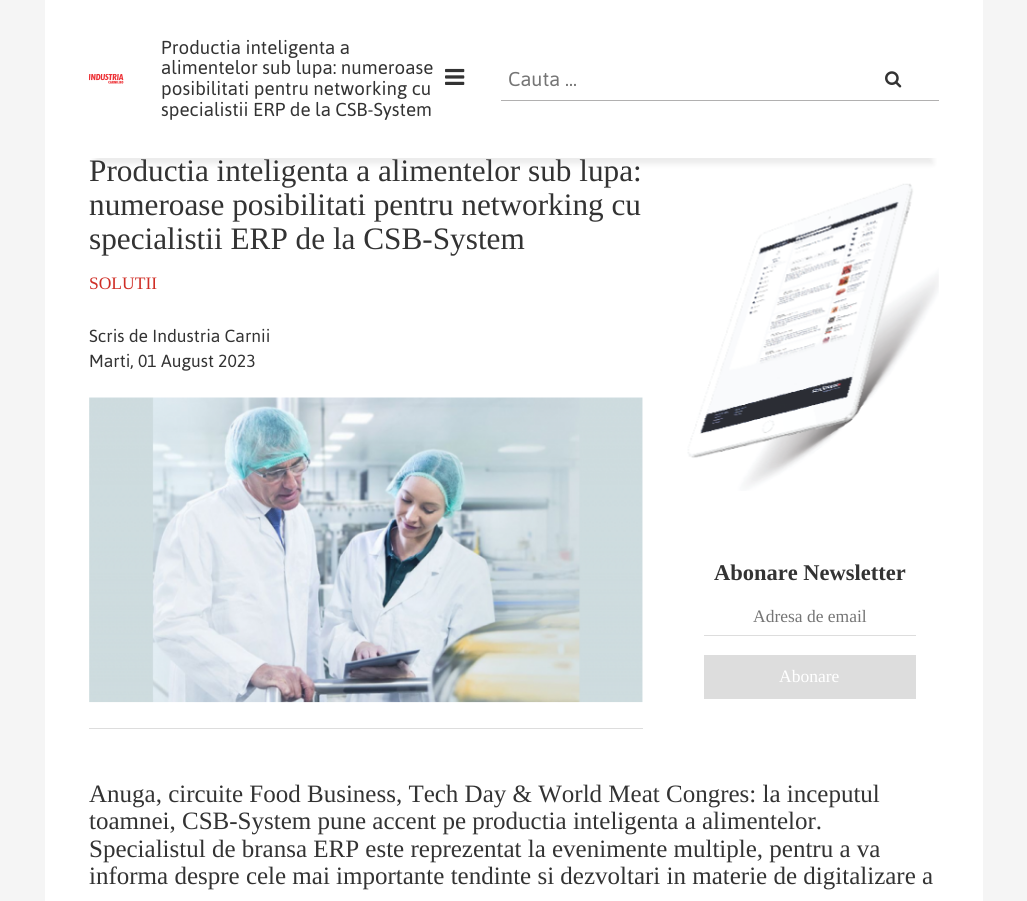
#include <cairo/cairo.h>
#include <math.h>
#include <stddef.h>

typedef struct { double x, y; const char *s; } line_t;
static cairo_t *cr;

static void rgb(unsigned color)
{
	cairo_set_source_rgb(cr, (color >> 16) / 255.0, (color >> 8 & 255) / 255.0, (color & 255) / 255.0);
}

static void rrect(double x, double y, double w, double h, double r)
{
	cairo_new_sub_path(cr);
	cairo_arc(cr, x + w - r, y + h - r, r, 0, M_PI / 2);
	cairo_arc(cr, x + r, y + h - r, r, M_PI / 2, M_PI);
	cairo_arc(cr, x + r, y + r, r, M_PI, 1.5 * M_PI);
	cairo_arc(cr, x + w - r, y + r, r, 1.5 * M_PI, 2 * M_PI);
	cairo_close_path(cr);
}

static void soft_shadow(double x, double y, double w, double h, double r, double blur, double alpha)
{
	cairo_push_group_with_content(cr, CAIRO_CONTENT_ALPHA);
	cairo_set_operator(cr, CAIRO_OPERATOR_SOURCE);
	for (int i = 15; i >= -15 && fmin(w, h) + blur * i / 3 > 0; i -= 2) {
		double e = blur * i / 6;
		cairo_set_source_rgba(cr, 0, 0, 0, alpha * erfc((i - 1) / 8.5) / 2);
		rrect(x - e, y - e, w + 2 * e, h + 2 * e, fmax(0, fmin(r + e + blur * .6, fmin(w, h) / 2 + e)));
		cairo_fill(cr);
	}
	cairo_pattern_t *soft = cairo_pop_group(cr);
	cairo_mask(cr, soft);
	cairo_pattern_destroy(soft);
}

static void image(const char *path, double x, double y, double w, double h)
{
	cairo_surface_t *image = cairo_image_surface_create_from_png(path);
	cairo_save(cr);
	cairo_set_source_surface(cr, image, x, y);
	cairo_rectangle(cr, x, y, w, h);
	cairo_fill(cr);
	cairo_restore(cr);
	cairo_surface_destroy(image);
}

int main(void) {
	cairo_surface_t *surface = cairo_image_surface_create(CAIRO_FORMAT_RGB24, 1027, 901);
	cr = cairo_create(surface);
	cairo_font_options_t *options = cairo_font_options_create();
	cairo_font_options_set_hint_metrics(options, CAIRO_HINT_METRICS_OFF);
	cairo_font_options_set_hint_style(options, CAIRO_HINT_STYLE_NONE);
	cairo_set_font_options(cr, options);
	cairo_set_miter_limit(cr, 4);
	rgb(0xf5f5f5);
	cairo_paint(cr);
	rgb(0xffffff);
	cairo_rectangle(cr, 45, 0, 938, 901);
	cairo_fill(cr);
	cairo_save(cr);
	cairo_set_fill_rule(cr, CAIRO_FILL_RULE_EVEN_ODD);
	cairo_new_path(cr);
	cairo_move_to(cr, 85, 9);
	cairo_line_to(cr, 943, 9);
	cairo_line_to(cr, 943, 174);
	cairo_line_to(cr, 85, 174);
	cairo_close_path(cr);
	cairo_move_to(cr, 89, 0);
	cairo_line_to(cr, 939, 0);
	cairo_line_to(cr, 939, 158);
	cairo_line_to(cr, 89, 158);
	cairo_close_path(cr);
	cairo_clip(cr);
	rgb(0x000000);
	soft_shadow(95, 19, 838, 145, 0, 3, 0.08);
	cairo_restore(cr);
	image("img/1.png", 89, 74, 35, 10);
	image("img/2.png", 445, 68, 20, 17);
	rgb(0xb1b0b0);
	cairo_rectangle(cr, 501, 100, 438, 1);
	cairo_fill(cr);
	image("img/3.png", 885, 71, 17, 17);
	image("img/4.png", 89, 397, 554, 306);
	rgb(0xdddddd);
	cairo_rectangle(cr, 89, 728, 554, 1);
	cairo_fill(cr);
	image("img/5.png", 687, 183, 252, 308);
	cairo_rectangle(cr, 704, 635, 212, 1);
	cairo_fill(cr);
	cairo_rectangle(cr, 704, 655, 212, 44);
	cairo_fill(cr);
	cairo_select_font_face(cr, "Asap", CAIRO_FONT_SLANT_NORMAL, CAIRO_FONT_WEIGHT_NORMAL);
	cairo_set_font_size(cr, 18.75);
	rgb(0x333333);
	{
		static const line_t items[] = {
			{161, 54, "Productia inteligenta a"},
			{161, 74, "alimentelor sub lupa: numeroase"},
			{161, 95, "posibilitati pentru networking cu"},
			{161, 116, "specialistii ERP de la CSB-System"},
		};
		for (size_t i = 0; i < sizeof items / sizeof *items; i++) {
			cairo_move_to(cr, items[i].x, items[i].y);
			cairo_show_text(cr, items[i].s);
		}
	}
	cairo_set_font_size(cr, 20);
	rgb(0x757575);
	cairo_move_to(cr, 508, 86);
	cairo_show_text(cr, "Cauta ...");
	cairo_select_font_face(cr, "Liberation Serif", CAIRO_FONT_SLANT_NORMAL, CAIRO_FONT_WEIGHT_NORMAL);
	cairo_set_font_size(cr, 31.25);
	rgb(0x333333);
	{
		static const line_t items[] = {
			{89, 181, "Productia inteligenta a alimentelor sub lupa:"},
			{89, 215, "numeroase posibilitati pentru networking cu"},
			{89, 249, "specialistii ERP de la CSB-System"},
		};
		for (size_t i = 0; i < sizeof items / sizeof *items; i++) {
			cairo_move_to(cr, items[i].x, items[i].y);
			cairo_show_text(cr, items[i].s);
		}
	}
	cairo_set_font_size(cr, 17.5);
	rgb(0xcf2e26);
	cairo_move_to(cr, 89, 289);
	cairo_show_text(cr, "SOLUTII");
	cairo_select_font_face(cr, "Asap", CAIRO_FONT_SLANT_NORMAL, CAIRO_FONT_WEIGHT_NORMAL);
	rgb(0x333333);
	cairo_move_to(cr, 89, 342);
	cairo_show_text(cr, "Scris de Industria Carnii");
	cairo_move_to(cr, 89, 367);
	cairo_show_text(cr, "Marti, 01 August 2023");
	cairo_select_font_face(cr, "Liberation Serif", CAIRO_FONT_SLANT_NORMAL, CAIRO_FONT_WEIGHT_BOLD);
	cairo_set_font_size(cr, 22.5);
	cairo_move_to(cr, 714, 580);
	cairo_show_text(cr, "Abonare Newsletter");
	cairo_select_font_face(cr, "Liberation Serif", CAIRO_FONT_SLANT_NORMAL, CAIRO_FONT_WEIGHT_NORMAL);
	cairo_set_font_size(cr, 17.5);
	rgb(0x757575);
	cairo_move_to(cr, 753, 622);
	cairo_show_text(cr, "Adresa de email");
	rgb(0xffffff);
	cairo_move_to(cr, 779, 682);
	cairo_show_text(cr, "Abonare");
	cairo_set_font_size(cr, 25);
	rgb(0x333333);
	{
		static const line_t items[] = {
			{89, 802, "Anuga, circuite Food Business, Tech Day & World Meat Congres: la inceputul"},
			{89, 829, "toamnei, CSB-System pune accent pe productia inteligenta a alimentelor."},
			{89, 857, "Specialistul de bransa ERP este reprezentat la evenimente multiple, pentru a va"},
			{89, 884, "informa despre cele mai importante tendinte si dezvoltari in materie de digitalizare a"},
		};
		for (size_t i = 0; i < sizeof items / sizeof *items; i++) {
			cairo_move_to(cr, items[i].x, items[i].y);
			cairo_show_text(cr, items[i].s);
		}
	}
	cairo_surface_write_to_png(surface, "page.png");
	cairo_font_options_destroy(options);
	cairo_destroy(cr);
	cairo_surface_destroy(surface);
	return 0;
}
